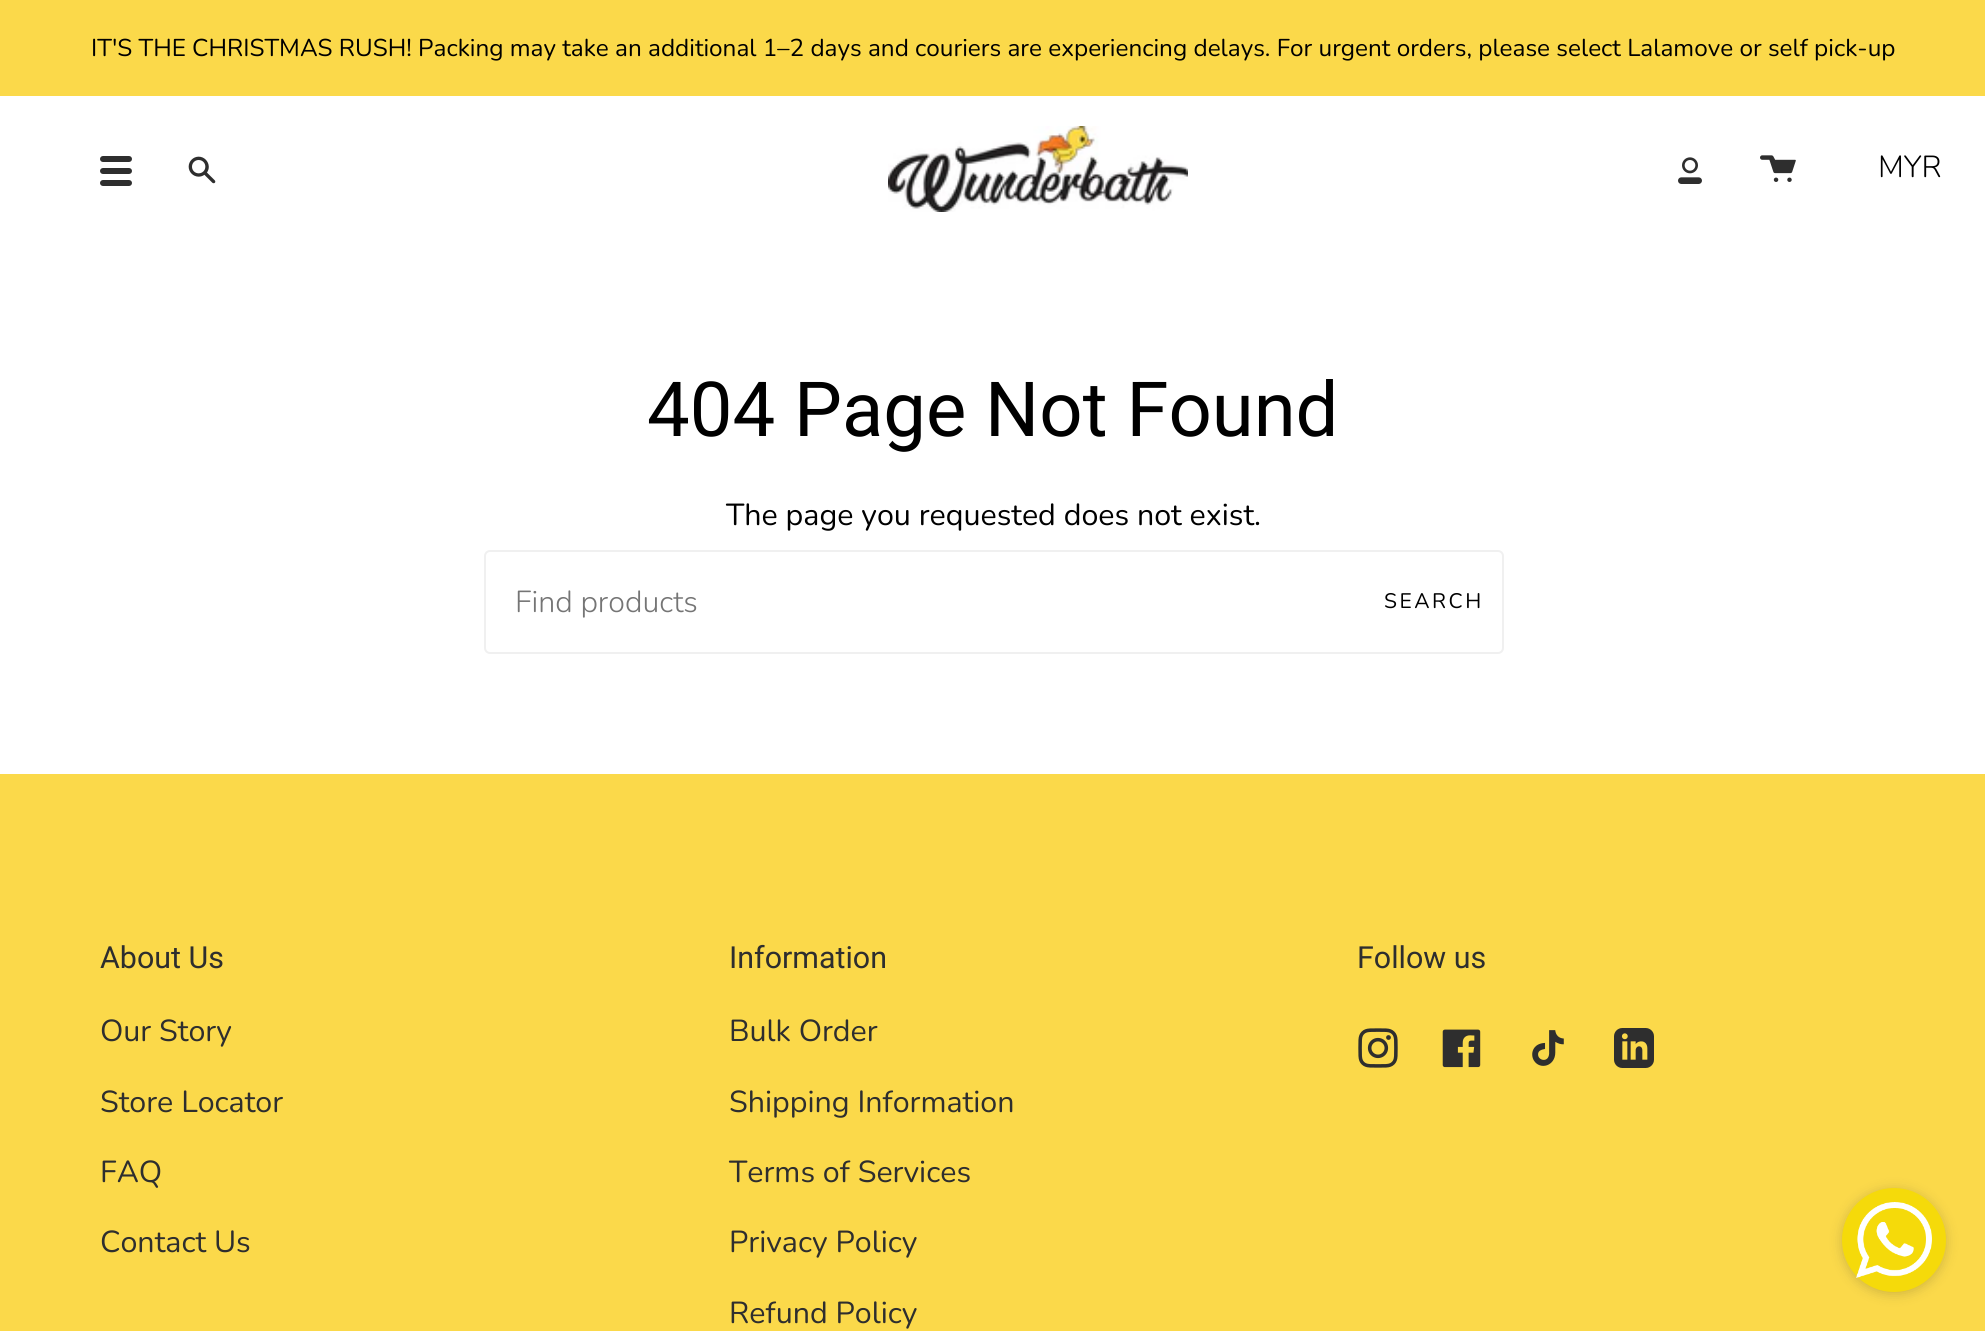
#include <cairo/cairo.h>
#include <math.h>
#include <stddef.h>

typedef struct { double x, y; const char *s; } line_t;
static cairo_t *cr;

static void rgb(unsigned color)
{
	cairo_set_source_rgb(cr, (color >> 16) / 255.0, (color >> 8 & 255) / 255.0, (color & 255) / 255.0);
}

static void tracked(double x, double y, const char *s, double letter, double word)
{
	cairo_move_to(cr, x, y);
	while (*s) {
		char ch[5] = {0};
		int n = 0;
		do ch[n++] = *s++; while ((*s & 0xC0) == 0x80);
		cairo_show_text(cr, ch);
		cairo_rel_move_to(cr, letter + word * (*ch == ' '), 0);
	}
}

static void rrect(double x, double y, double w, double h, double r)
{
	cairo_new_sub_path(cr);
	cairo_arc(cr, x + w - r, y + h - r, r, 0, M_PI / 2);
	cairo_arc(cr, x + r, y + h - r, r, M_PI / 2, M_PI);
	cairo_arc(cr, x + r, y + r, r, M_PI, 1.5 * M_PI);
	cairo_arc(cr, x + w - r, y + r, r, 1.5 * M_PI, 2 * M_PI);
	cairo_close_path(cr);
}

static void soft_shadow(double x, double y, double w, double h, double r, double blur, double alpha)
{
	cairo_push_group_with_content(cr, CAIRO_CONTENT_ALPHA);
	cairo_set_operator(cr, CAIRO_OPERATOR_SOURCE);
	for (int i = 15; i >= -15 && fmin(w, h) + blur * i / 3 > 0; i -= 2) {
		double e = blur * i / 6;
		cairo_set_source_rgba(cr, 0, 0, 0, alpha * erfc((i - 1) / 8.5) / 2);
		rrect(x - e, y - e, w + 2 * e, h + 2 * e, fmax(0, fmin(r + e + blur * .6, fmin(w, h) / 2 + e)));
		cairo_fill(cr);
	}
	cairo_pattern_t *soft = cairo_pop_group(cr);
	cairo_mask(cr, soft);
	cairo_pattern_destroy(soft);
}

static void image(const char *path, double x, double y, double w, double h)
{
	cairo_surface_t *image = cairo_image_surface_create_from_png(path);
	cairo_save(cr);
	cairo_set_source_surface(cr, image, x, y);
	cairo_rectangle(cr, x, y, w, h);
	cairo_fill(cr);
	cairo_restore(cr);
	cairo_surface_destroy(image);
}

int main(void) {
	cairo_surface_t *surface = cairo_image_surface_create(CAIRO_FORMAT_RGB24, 1985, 1331);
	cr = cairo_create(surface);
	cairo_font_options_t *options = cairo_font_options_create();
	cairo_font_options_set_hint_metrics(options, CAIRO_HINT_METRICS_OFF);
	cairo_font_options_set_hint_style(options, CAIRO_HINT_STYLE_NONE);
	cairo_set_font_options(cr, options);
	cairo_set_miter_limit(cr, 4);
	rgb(0xffffff);
	cairo_paint(cr);
	rgb(0xfbd94a);
	cairo_rectangle(cr, 0, 0, 1985, 96);
	cairo_fill(cr);
	rgb(0x2e2e2e);
	rrect(100, 156, 32, 6, 3);
	cairo_fill(cr);
	rrect(100, 168, 32, 6, 3);
	cairo_fill(cr);
	rrect(100, 180, 32, 6, 3);
	cairo_fill(cr);
	image("img/1.png", 188, 156, 28, 28);
	image("img/2.png", 888, 126, 300, 86);
	image("img/3.png", 1678, 157, 24, 27);
	image("img/4.png", 1760, 155, 36, 27);
	rrect(485, 551, 1018, 102, 5);
	rgb(0xf0f0f0);
	cairo_stroke(cr);
	rgb(0xfbd94a);
	cairo_rectangle(cr, 0, 774, 1985, 557);
	cairo_fill(cr);
	image("img/5.png", 1358, 1028, 40, 40);
	image("img/6.png", 1442, 1029, 39, 39);
	image("img/7.png", 1532, 1030, 32, 36);
	image("img/8.png", 1614, 1028, 40, 40);
	rgb(0x1b1b1b);
	soft_shadow(1842, 1190, 104, 104, 52, 6, 0.2);
	rgb(0xf5da0a);
	cairo_arc(cr, 1894, 1240, 51, 0, 2 * M_PI);
	cairo_fill_preserve(cr);
	cairo_stroke(cr);
	image("img/9.png", 1856, 1202, 76, 76);
	cairo_select_font_face(cr, "Nunito", CAIRO_FONT_SLANT_NORMAL, CAIRO_FONT_WEIGHT_NORMAL);
	cairo_set_font_size(cr, 24.32);
	rgb(0x000000);
	cairo_move_to(cr, 91, 56);
	cairo_show_text(cr, "IT'S THE CHRISTMAS RUSH! Packing may take an additional 1–2 days and couriers are experiencing delays. For urgent orders, please select Lalamove or self pick-up");
	cairo_select_font_face(cr, "Nunito Light", CAIRO_FONT_SLANT_NORMAL, CAIRO_FONT_WEIGHT_NORMAL);
	cairo_set_font_size(cr, 30.4);
	cairo_move_to(cr, 1878, 177);
	cairo_show_text(cr, "MYR");
	cairo_select_font_face(cr, "Roboto", CAIRO_FONT_SLANT_NORMAL, CAIRO_FONT_WEIGHT_NORMAL);
	cairo_set_font_size(cr, 76);
	cairo_move_to(cr, 647, 436);
	cairo_show_text(cr, "404 Page Not Found");
	cairo_select_font_face(cr, "Nunito", CAIRO_FONT_SLANT_NORMAL, CAIRO_FONT_WEIGHT_NORMAL);
	cairo_set_font_size(cr, 30.4);
	cairo_move_to(cr, 726, 525);
	cairo_show_text(cr, "The page you requested does not exist.");
	cairo_select_font_face(cr, "Nunito Light", CAIRO_FONT_SLANT_NORMAL, CAIRO_FONT_WEIGHT_NORMAL);
	rgb(0x757575);
	cairo_move_to(cr, 515, 612);
	cairo_show_text(cr, "Find products");
	cairo_select_font_face(cr, "Nunito", CAIRO_FONT_SLANT_NORMAL, CAIRO_FONT_WEIGHT_NORMAL);
	cairo_set_font_size(cr, 21);
	rgb(0x000000);
	tracked(1384, 608, "SEARCH", 2.5, 0);
	cairo_select_font_face(cr, "Roboto", CAIRO_FONT_SLANT_NORMAL, CAIRO_FONT_WEIGHT_NORMAL);
	cairo_set_font_size(cr, 30.4);
	rgb(0x2e2e2e);
	cairo_move_to(cr, 100, 968);
	cairo_show_text(cr, "About Us");
	cairo_select_font_face(cr, "Nunito", CAIRO_FONT_SLANT_NORMAL, CAIRO_FONT_WEIGHT_NORMAL);
	{
		static const line_t items[] = {
			{100, 1041, "Our Story"},
			{100, 1112, "Store Locator"},
			{100, 1182, "FAQ"},
			{100, 1252, "Contact Us"},
		};
		for (size_t i = 0; i < sizeof items / sizeof *items; i++) {
			cairo_move_to(cr, items[i].x, items[i].y);
			cairo_show_text(cr, items[i].s);
		}
	}
	cairo_select_font_face(cr, "Roboto", CAIRO_FONT_SLANT_NORMAL, CAIRO_FONT_WEIGHT_NORMAL);
	cairo_move_to(cr, 729, 968);
	cairo_show_text(cr, "Information");
	cairo_select_font_face(cr, "Nunito", CAIRO_FONT_SLANT_NORMAL, CAIRO_FONT_WEIGHT_NORMAL);
	{
		static const line_t items[] = {
			{729, 1041, "Bulk Order"},
			{729, 1112, "Shipping Information"},
			{729, 1182, "Terms of Services"},
			{729, 1252, "Privacy Policy"},
			{729, 1323, "Refund Policy"},
		};
		for (size_t i = 0; i < sizeof items / sizeof *items; i++) {
			cairo_move_to(cr, items[i].x, items[i].y);
			cairo_show_text(cr, items[i].s);
		}
	}
	cairo_select_font_face(cr, "Roboto", CAIRO_FONT_SLANT_NORMAL, CAIRO_FONT_WEIGHT_NORMAL);
	cairo_move_to(cr, 1357, 968);
	cairo_show_text(cr, "Follow us");
	cairo_surface_write_to_png(surface, "page.png");
	cairo_font_options_destroy(options);
	cairo_destroy(cr);
	cairo_surface_destroy(surface);
	return 0;
}
